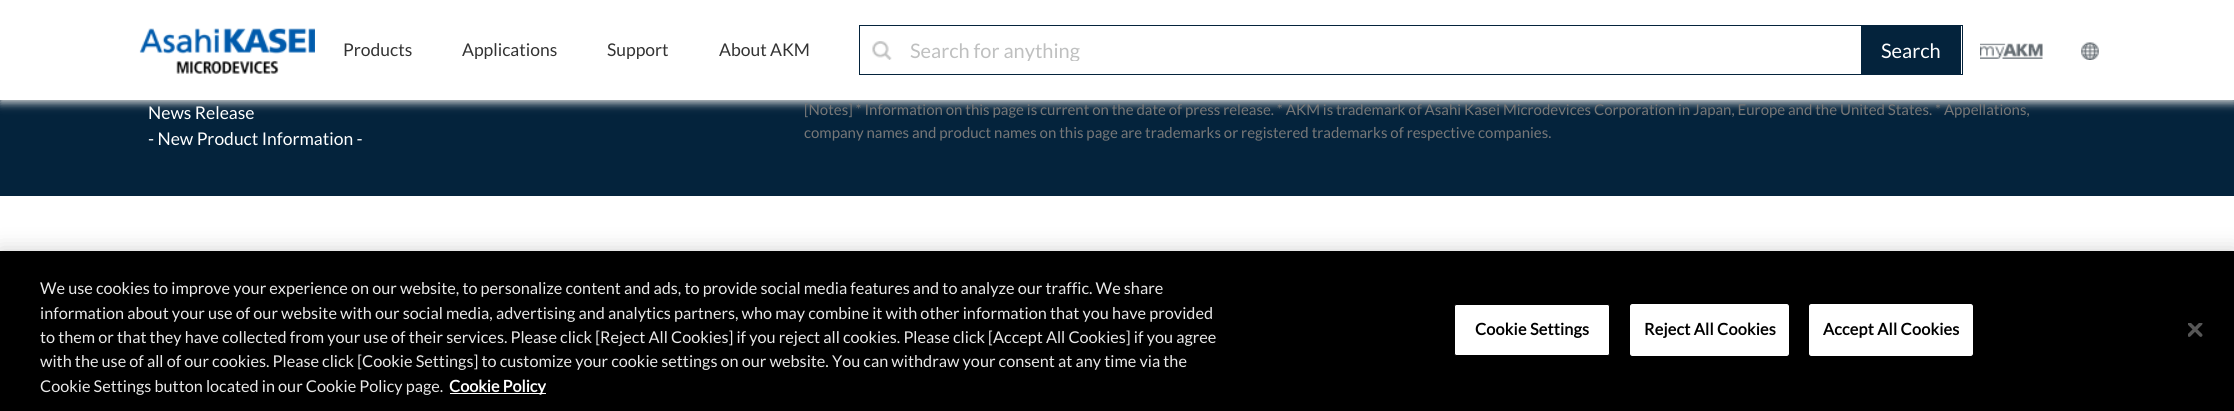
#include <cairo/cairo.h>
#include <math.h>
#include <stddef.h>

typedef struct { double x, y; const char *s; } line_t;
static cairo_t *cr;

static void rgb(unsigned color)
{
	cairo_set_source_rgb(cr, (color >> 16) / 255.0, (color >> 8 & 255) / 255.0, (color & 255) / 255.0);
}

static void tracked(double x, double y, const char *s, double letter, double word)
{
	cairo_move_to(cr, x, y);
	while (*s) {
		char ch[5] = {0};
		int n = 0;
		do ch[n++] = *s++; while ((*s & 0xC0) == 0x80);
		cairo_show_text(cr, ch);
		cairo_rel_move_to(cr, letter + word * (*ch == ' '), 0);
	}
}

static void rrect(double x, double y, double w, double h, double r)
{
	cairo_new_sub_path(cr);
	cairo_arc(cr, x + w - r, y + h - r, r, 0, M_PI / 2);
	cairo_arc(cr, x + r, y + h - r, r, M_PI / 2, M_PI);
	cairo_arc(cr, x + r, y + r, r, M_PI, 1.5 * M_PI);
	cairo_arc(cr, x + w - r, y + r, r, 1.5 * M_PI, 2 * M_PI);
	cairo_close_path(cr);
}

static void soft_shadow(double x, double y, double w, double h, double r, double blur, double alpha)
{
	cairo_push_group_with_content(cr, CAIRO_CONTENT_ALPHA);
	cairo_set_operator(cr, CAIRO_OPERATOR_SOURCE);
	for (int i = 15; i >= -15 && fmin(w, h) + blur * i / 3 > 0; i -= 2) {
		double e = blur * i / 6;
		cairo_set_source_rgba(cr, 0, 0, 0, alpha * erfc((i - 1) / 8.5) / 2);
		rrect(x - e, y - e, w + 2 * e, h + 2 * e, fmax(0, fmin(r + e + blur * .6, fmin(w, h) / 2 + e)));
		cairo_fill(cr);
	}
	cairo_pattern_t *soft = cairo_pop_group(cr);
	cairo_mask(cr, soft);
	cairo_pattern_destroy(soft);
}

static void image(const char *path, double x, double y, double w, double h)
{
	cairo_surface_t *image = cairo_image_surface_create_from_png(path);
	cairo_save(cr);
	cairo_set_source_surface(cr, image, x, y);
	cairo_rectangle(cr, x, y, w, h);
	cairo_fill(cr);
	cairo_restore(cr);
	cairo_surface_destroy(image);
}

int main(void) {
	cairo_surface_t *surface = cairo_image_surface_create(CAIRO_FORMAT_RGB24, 2234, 411);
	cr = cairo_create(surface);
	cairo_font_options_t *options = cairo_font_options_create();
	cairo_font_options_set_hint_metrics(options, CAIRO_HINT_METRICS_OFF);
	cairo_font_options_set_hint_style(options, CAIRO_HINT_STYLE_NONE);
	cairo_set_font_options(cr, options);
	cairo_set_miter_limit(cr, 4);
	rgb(0xffffff);
	cairo_paint(cr);
	rgb(0x04233c);
	cairo_rectangle(cr, 0, 100, 2234, 96);
	cairo_fill(cr);
	rgb(0xd7d8d8);
	soft_shadow(0, 3, 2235, 100, 0, 4.5, 1);
	rgb(0xffffff);
	cairo_rectangle(cr, 0, 0, 2234, 100);
	cairo_fill(cr);
	image("img/1.png", 139, 28, 176, 46);
	image("img/2.png", 872, 41, 20, 19);
	rgb(0x04233c);
	cairo_rectangle(cr, 1861, 26, 100, 48);
	cairo_fill(cr);
	cairo_rectangle(cr, 859.5, 25.5, 1103, 49);
	cairo_set_line_width(cr, 1);
	cairo_stroke(cr);
	image("img/3.png", 1980, 43, 63, 16);
	image("img/4.png", 2081, 42, 18, 18);
	rgb(0x000000);
	soft_shadow(0, 251, 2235, 160, 0, 11, 0.2);
	rgb(0x000000);
	cairo_rectangle(cr, 0, 251, 2234, 160);
	cairo_fill(cr);
	rgb(0xffffff);
	cairo_rectangle(cr, 450, 393, 96, 1);
	cairo_fill(cr);
	rrect(1454.5, 304.5, 155, 51, 2);
	cairo_fill_preserve(cr);
	rgb(0x000000);
	cairo_stroke(cr);
	rgb(0xffffff);
	rrect(1630.5, 304.5, 158, 51, 2);
	cairo_fill_preserve(cr);
	cairo_stroke(cr);
	rrect(1809.5, 304.5, 163, 51, 2);
	cairo_fill_preserve(cr);
	cairo_stroke(cr);
	image("img/5.png", 2188, 323, 15, 14);
	cairo_select_font_face(cr, "Lato", CAIRO_FONT_SLANT_NORMAL, CAIRO_FONT_WEIGHT_NORMAL);
	cairo_set_font_size(cr, 17.5);
	rgb(0x333333);
	{
		static const line_t items[] = {
			{343, 56, "Products"},
			{462, 56, "Applications"},
			{607, 56, "Support"},
			{719, 56, "About AKM"},
		};
		for (size_t i = 0; i < sizeof items / sizeof *items; i++) {
			cairo_move_to(cr, items[i].x, items[i].y);
			cairo_show_text(cr, items[i].s);
		}
	}
	cairo_save(cr);
	cairo_rectangle(cr, 910, 38, 951, 23);
	cairo_clip(cr);
	cairo_set_font_size(cr, 20);
	rgb(0xbfc0c0);
	cairo_move_to(cr, 910, 58);
	cairo_show_text(cr, "Search for anything");
	cairo_restore(cr);
	cairo_set_font_size(cr, 20);
	rgb(0xffffff);
	cairo_move_to(cr, 1881, 58);
	cairo_show_text(cr, "Search");
	cairo_set_font_size(cr, 17.5);
	cairo_move_to(cr, 148, 119);
	cairo_show_text(cr, "News Release");
	cairo_move_to(cr, 148, 145);
	cairo_show_text(cr, "- New Product Information -");
	cairo_set_font_size(cr, 15);
	rgb(0x777777);
	cairo_move_to(cr, 804, 115);
	cairo_show_text(cr, "[Notes] * Information on this page is current on the date of press release. * AKM is trademark of Asahi Kasei Microdevices Corporation in Japan, Europe and the United States. * Appellations,");
	cairo_move_to(cr, 804, 138);
	cairo_show_text(cr, "company names and product names on this page are trademarks or registered trademarks of respective companies.");
	cairo_set_font_size(cr, 16.25);
	rgb(0xe9e9e9);
	{
		static const line_t items[] = {
			{40, 294, "We use cookies to improve your experience on our website, to personalize content and ads, to provide social media features and to analyze our traffic. We share"},
			{40, 319, "information about your use of our website with our social media, advertising and analytics partners, who may combine it with other information that you have provided"},
			{40, 343, "to them or that they have collected from your use of their services. Please click [Reject All Cookies] if you reject all cookies. Please click [Accept All Cookies] if you agree"},
			{40, 367, "with the use of all of our cookies. Please click [Cookie Settings] to customize your cookie settings on our website. You can withdraw your consent at any time via the"},
			{40, 392, "Cookie Settings button located in our Cookie Policy page."},
		};
		for (size_t i = 0; i < sizeof items / sizeof *items; i++) {
			cairo_move_to(cr, items[i].x, items[i].y);
			cairo_show_text(cr, items[i].s);
		}
	}
	cairo_select_font_face(cr, "Lato", CAIRO_FONT_SLANT_NORMAL, CAIRO_FONT_WEIGHT_BOLD);
	rgb(0xffffff);
	cairo_move_to(cr, 449, 392);
	cairo_show_text(cr, "Cookie Policy");
	rgb(0x000000);
	{
		static const line_t items[] = {
			{1475, 335, "Cookie Settings"},
			{1644, 335, "Reject All Cookies"},
			{1823, 335, "Accept All Cookies"},
		};
		for (size_t i = 0; i < sizeof items / sizeof *items; i++) {
			tracked(items[i].x, items[i].y, items[i].s, 0.2, 0);
		}
	}
	cairo_surface_write_to_png(surface, "page.png");
	cairo_font_options_destroy(options);
	cairo_destroy(cr);
	cairo_surface_destroy(surface);
	return 0;
}
